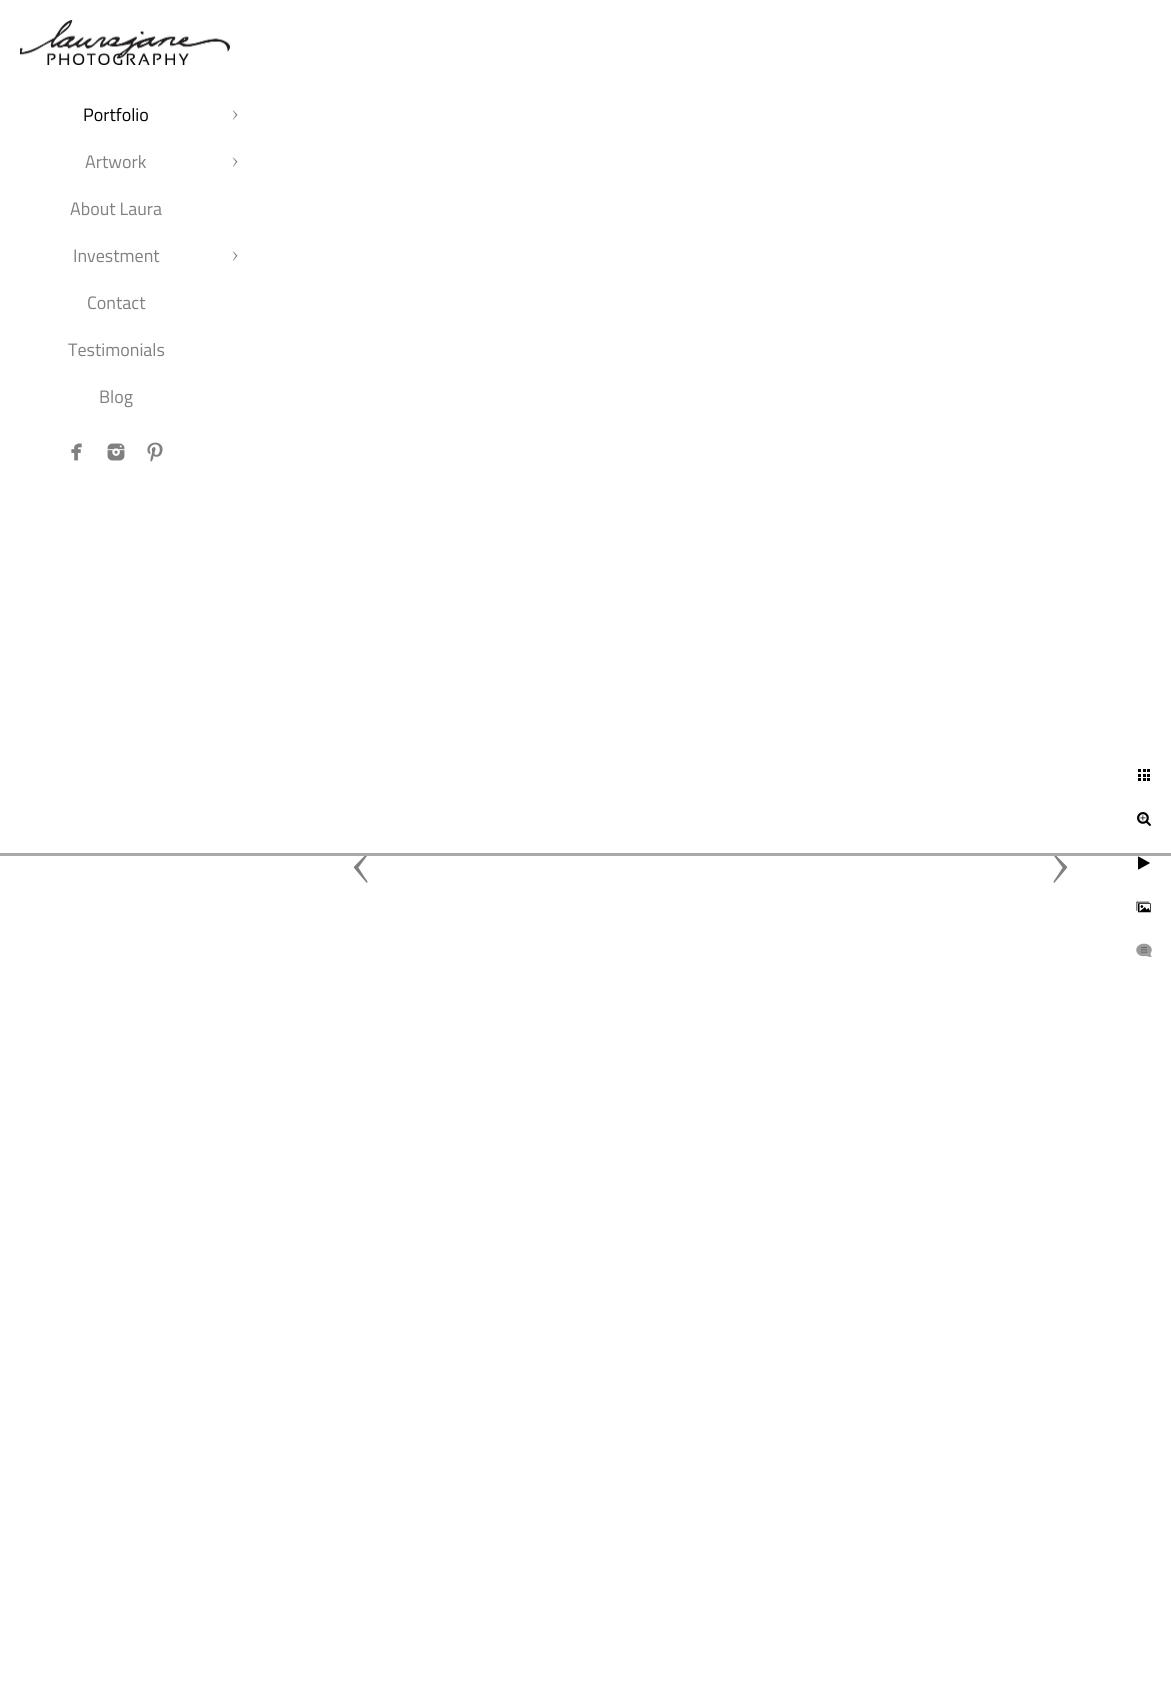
#include <cairo/cairo.h>
#include <math.h>
#include <stddef.h>

typedef struct { double x, y; const char *s; } line_t;
static cairo_t *cr;

static void rgb(unsigned color)
{
	cairo_set_source_rgb(cr, (color >> 16) / 255.0, (color >> 8 & 255) / 255.0, (color & 255) / 255.0);
}

static void image(const char *path, double x, double y, double w, double h)
{
	cairo_surface_t *image = cairo_image_surface_create_from_png(path);
	cairo_save(cr);
	cairo_set_source_surface(cr, image, x, y);
	cairo_rectangle(cr, x, y, w, h);
	cairo_fill(cr);
	cairo_restore(cr);
	cairo_surface_destroy(image);
}

int main(void) {
	cairo_surface_t *surface = cairo_image_surface_create(CAIRO_FORMAT_RGB24, 1171, 1705);
	cr = cairo_create(surface);
	cairo_font_options_t *options = cairo_font_options_create();
	cairo_font_options_set_hint_metrics(options, CAIRO_HINT_METRICS_OFF);
	cairo_font_options_set_hint_style(options, CAIRO_HINT_STYLE_NONE);
	cairo_set_font_options(cr, options);
	cairo_set_miter_limit(cr, 4);
	rgb(0xffffff);
	cairo_paint(cr);
	image("img/1.png", 20, 20, 210, 45);
	image("img/2.png", 232, 110, 6, 10);
	image("img/2.png", 232, 157, 6, 10);
	image("img/2.png", 232, 251, 6, 10);
	image("img/3.png", 71, 443, 11, 18);
	image("img/4.png", 107, 443, 18, 18);
	image("img/5.png", 147, 442, 16, 20);
	image("img/6.png", 1138, 769, 12, 12);
	image("img/7.png", 1137, 812, 14, 14);
	image("img/8.png", 1138, 856, 12, 14);
	image("img/9.png", 1136, 901, 15, 12);
	image("img/10.png", 1136, 943, 16, 15);
	rgb(0xa9a9a9);
	cairo_rectangle(cr, 0, 853, 1171, 3);
	cairo_fill(cr);
	image("img/11.png", 353, 856, 15, 27);
	image("img/12.png", 1053, 856, 15, 27);
	cairo_select_font_face(cr, "Titillium Web", CAIRO_FONT_SLANT_NORMAL, CAIRO_FONT_WEIGHT_NORMAL);
	cairo_set_font_size(cr, 18);
	rgb(0x000000);
	cairo_move_to(cr, 83, 121);
	cairo_show_text(cr, "Portfolio");
	rgb(0x808080);
	{
		static const line_t items[] = {
			{85, 168, "Artwork"},
			{70, 215, "About Laura"},
			{73, 262, "Investment"},
			{87, 309, "Contact"},
			{68, 356, "Testimonials"},
			{99, 403, "Blog"},
		};
		for (size_t i = 0; i < sizeof items / sizeof *items; i++) {
			cairo_move_to(cr, items[i].x, items[i].y);
			cairo_show_text(cr, items[i].s);
		}
	}
	cairo_surface_write_to_png(surface, "page.png");
	cairo_font_options_destroy(options);
	cairo_destroy(cr);
	cairo_surface_destroy(surface);
	return 0;
}
